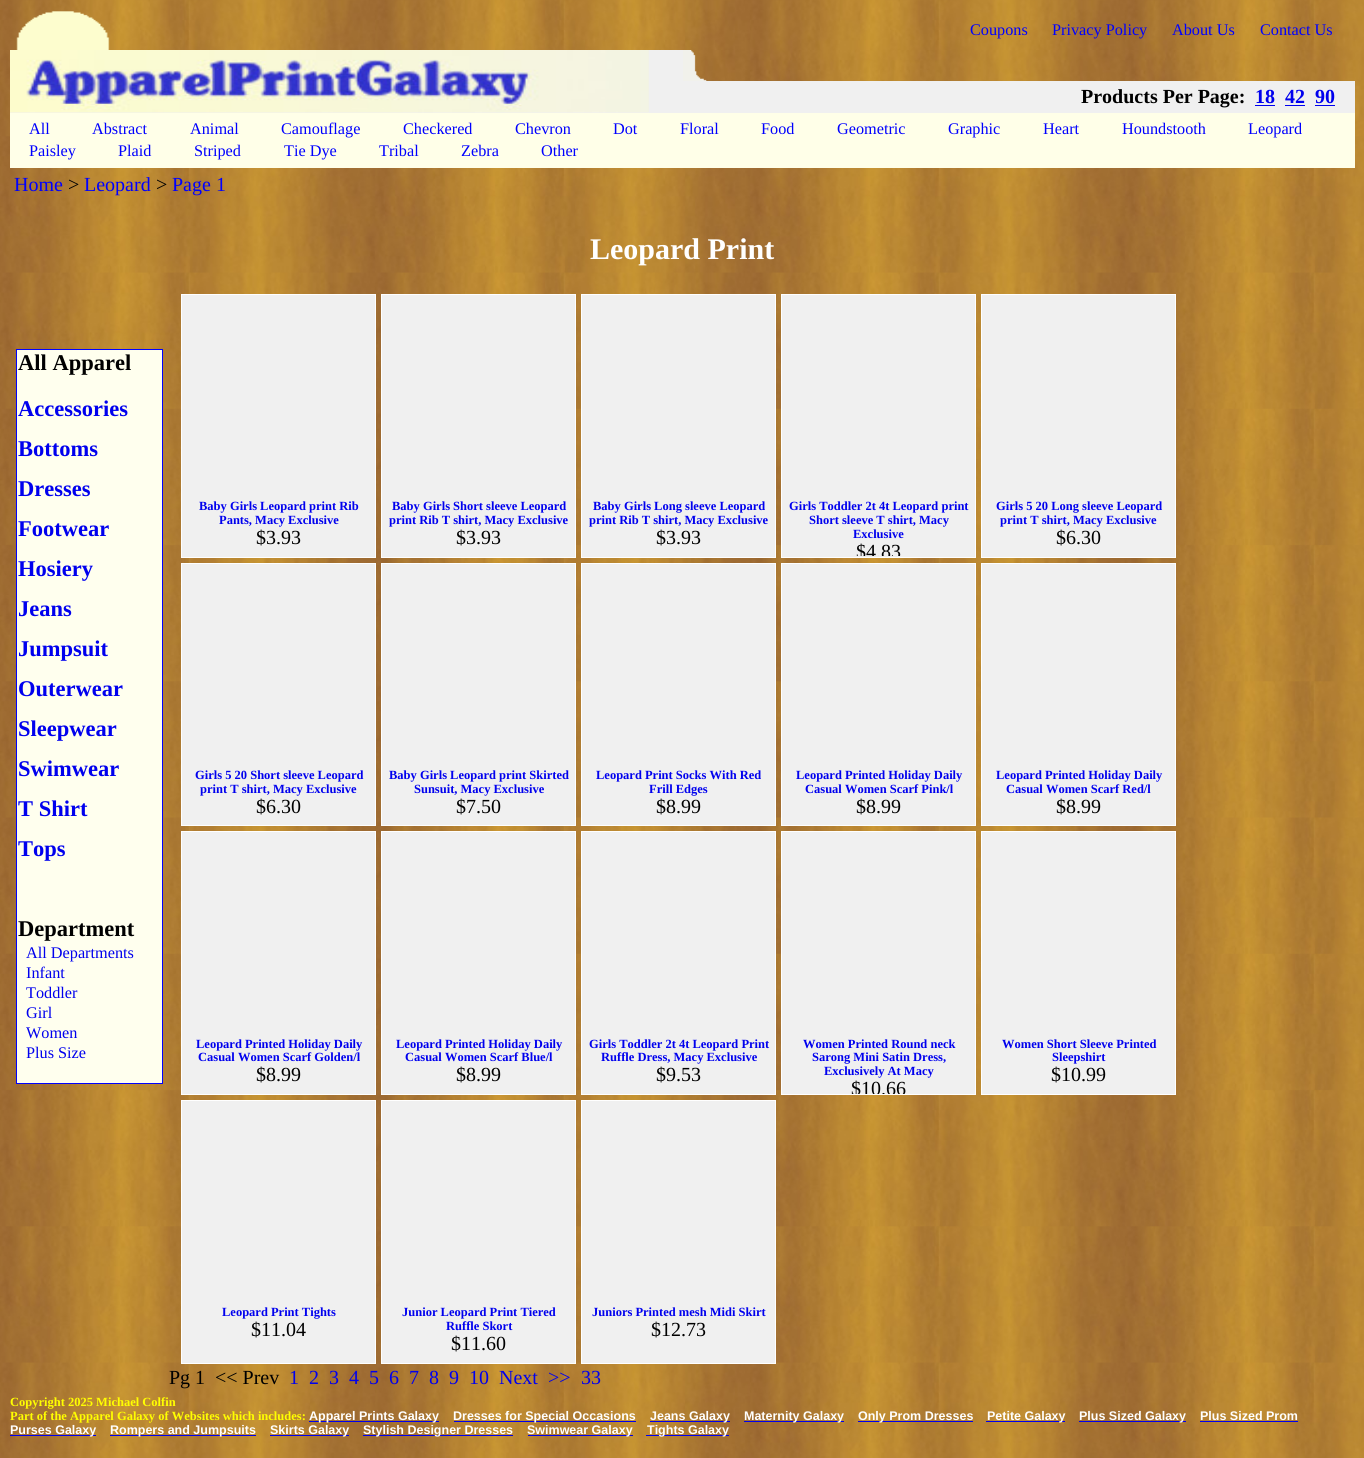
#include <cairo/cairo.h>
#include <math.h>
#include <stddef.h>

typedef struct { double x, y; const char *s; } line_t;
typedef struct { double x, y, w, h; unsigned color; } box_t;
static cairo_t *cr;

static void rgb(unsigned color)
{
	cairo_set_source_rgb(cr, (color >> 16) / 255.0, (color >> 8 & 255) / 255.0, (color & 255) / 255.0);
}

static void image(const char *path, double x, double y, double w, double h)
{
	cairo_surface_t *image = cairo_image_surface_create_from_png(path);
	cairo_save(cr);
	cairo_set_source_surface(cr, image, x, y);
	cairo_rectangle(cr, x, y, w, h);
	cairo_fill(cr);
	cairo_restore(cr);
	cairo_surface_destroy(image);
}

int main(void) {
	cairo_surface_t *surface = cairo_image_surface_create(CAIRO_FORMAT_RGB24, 1364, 1458);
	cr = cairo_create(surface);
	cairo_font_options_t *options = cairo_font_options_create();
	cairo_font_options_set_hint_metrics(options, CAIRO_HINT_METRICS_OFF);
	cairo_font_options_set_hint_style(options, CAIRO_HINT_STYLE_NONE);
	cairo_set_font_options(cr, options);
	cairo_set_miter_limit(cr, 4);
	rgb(0xffffff);
	cairo_paint(cr);
	image("img/1.png", 0, 0, 1364, 1458);
	image("img/2.png", 16, 11, 94, 39);
	rgb(0xf0f0f0);
	cairo_rectangle(cr, 10, 50, 673, 63);
	cairo_fill(cr);
	image("img/3.png", 10, 50, 639, 63);
	image("img/4.png", 683, 50, 24, 31);
	{
		static const box_t items[] = {
			{683, 81, 672, 32, 0xf0f0f0},
			{1255, 105, 20, 1, 0x0000ee},
			{1285, 105, 20, 1, 0x0000ee},
			{1315, 105, 20, 1, 0x0000ee},
			{10, 113, 1345, 55, 0xffffe8},
		};
		for (size_t i = 0; i < sizeof items / sizeof *items; i++) {
			rgb(items[i].color);
			cairo_rectangle(cr, items[i].x, items[i].y, items[i].w, items[i].h);
			cairo_fill(cr);
		}
	}
	rgb(0xffffee);
	cairo_rectangle(cr, 16.5, 349.5, 146, 734);
	cairo_fill_preserve(cr);
	rgb(0x0000ff);
	cairo_set_line_width(cr, 1);
	cairo_stroke(cr);
	rgb(0xf0f0f0);
	cairo_rectangle(cr, 181.5, 294.5, 194, 263);
	cairo_fill_preserve(cr);
	rgb(0xffffff);
	cairo_stroke(cr);
	rgb(0xf0f0f0);
	cairo_rectangle(cr, 381.5, 294.5, 194, 263);
	cairo_fill_preserve(cr);
	rgb(0xffffff);
	cairo_stroke(cr);
	rgb(0xf0f0f0);
	cairo_rectangle(cr, 581.5, 294.5, 194, 263);
	cairo_fill_preserve(cr);
	rgb(0xffffff);
	cairo_stroke(cr);
	rgb(0xf0f0f0);
	cairo_rectangle(cr, 781.5, 294.5, 194, 263);
	cairo_fill_preserve(cr);
	rgb(0xffffff);
	cairo_stroke(cr);
	rgb(0xf0f0f0);
	cairo_rectangle(cr, 981.5, 294.5, 194, 263);
	cairo_fill_preserve(cr);
	rgb(0xffffff);
	cairo_stroke(cr);
	rgb(0xf0f0f0);
	cairo_rectangle(cr, 181.5, 563.5, 194, 262);
	cairo_fill_preserve(cr);
	rgb(0xffffff);
	cairo_stroke(cr);
	rgb(0xf0f0f0);
	cairo_rectangle(cr, 381.5, 563.5, 194, 262);
	cairo_fill_preserve(cr);
	rgb(0xffffff);
	cairo_stroke(cr);
	rgb(0xf0f0f0);
	cairo_rectangle(cr, 581.5, 563.5, 194, 262);
	cairo_fill_preserve(cr);
	rgb(0xffffff);
	cairo_stroke(cr);
	rgb(0xf0f0f0);
	cairo_rectangle(cr, 781.5, 563.5, 194, 262);
	cairo_fill_preserve(cr);
	rgb(0xffffff);
	cairo_stroke(cr);
	rgb(0xf0f0f0);
	cairo_rectangle(cr, 981.5, 563.5, 194, 262);
	cairo_fill_preserve(cr);
	rgb(0xffffff);
	cairo_stroke(cr);
	rgb(0xf0f0f0);
	cairo_rectangle(cr, 181.5, 831.5, 194, 263);
	cairo_fill_preserve(cr);
	rgb(0xffffff);
	cairo_stroke(cr);
	rgb(0xf0f0f0);
	cairo_rectangle(cr, 381.5, 831.5, 194, 263);
	cairo_fill_preserve(cr);
	rgb(0xffffff);
	cairo_stroke(cr);
	rgb(0xf0f0f0);
	cairo_rectangle(cr, 581.5, 831.5, 194, 263);
	cairo_fill_preserve(cr);
	rgb(0xffffff);
	cairo_stroke(cr);
	rgb(0xf0f0f0);
	cairo_rectangle(cr, 781.5, 831.5, 194, 263);
	cairo_fill_preserve(cr);
	rgb(0xffffff);
	cairo_stroke(cr);
	rgb(0xf0f0f0);
	cairo_rectangle(cr, 981.5, 831.5, 194, 263);
	cairo_fill_preserve(cr);
	rgb(0xffffff);
	cairo_stroke(cr);
	rgb(0xf0f0f0);
	cairo_rectangle(cr, 181.5, 1100.5, 194, 263);
	cairo_fill_preserve(cr);
	rgb(0xffffff);
	cairo_stroke(cr);
	rgb(0xf0f0f0);
	cairo_rectangle(cr, 381.5, 1100.5, 194, 263);
	cairo_fill_preserve(cr);
	rgb(0xffffff);
	cairo_stroke(cr);
	rgb(0xf0f0f0);
	cairo_rectangle(cr, 581.5, 1100.5, 194, 263);
	cairo_fill_preserve(cr);
	rgb(0xffffff);
	cairo_stroke(cr);
	{
		static const box_t items[] = {
			{309, 1421, 130, 1, 0x0000ee},
			{454, 1421, 182, 1, 0x0000ee},
			{650, 1421, 80, 1, 0x0000ee},
			{744, 1421, 100, 1, 0x0000ee},
			{858, 1421, 115, 1, 0x0000ee},
			{986, 1421, 79, 1, 0x0000ee},
			{1079, 1421, 107, 1, 0x0000ee},
			{1200, 1421, 98, 1, 0x0000ee},
			{10, 1435, 86, 1, 0x0000ee},
			{110, 1435, 146, 1, 0x0000ee},
			{270, 1435, 79, 1, 0x0000ee},
			{363, 1435, 150, 1, 0x0000ee},
			{528, 1435, 105, 1, 0x0000ee},
			{646, 1435, 83, 1, 0x0000ee},
		};
		for (size_t i = 0; i < sizeof items / sizeof *items; i++) {
			rgb(items[i].color);
			cairo_rectangle(cr, items[i].x, items[i].y, items[i].w, items[i].h);
			cairo_fill(cr);
		}
	}
	cairo_select_font_face(cr, "Liberation Serif", CAIRO_FONT_SLANT_NORMAL, CAIRO_FONT_WEIGHT_NORMAL);
	cairo_set_font_size(cr, 16.25);
	rgb(0x0000ff);
	{
		static const line_t items[] = {
			{970, 35, "Coupons"},
			{1052, 35, "Privacy Policy"},
			{1172, 35, "About Us"},
			{1260, 35, "Contact Us"},
		};
		for (size_t i = 0; i < sizeof items / sizeof *items; i++) {
			cairo_move_to(cr, items[i].x, items[i].y);
			cairo_show_text(cr, items[i].s);
		}
	}
	cairo_select_font_face(cr, "Liberation Serif", CAIRO_FONT_SLANT_NORMAL, CAIRO_FONT_WEIGHT_BOLD);
	cairo_set_font_size(cr, 20);
	rgb(0x000000);
	cairo_move_to(cr, 1081, 103);
	cairo_show_text(cr, "Products Per Page:");
	rgb(0x0000ee);
	{
		static const line_t items[] = {
			{1255, 103, "18"},
			{1285, 103, "42"},
			{1315, 103, "90"},
		};
		for (size_t i = 0; i < sizeof items / sizeof *items; i++) {
			cairo_move_to(cr, items[i].x, items[i].y);
			cairo_show_text(cr, items[i].s);
		}
	}
	cairo_select_font_face(cr, "Liberation Serif", CAIRO_FONT_SLANT_NORMAL, CAIRO_FONT_WEIGHT_NORMAL);
	cairo_set_font_size(cr, 16.25);
	rgb(0x0000ff);
	{
		static const line_t items[] = {
			{29, 134, "All"},
			{92, 134, "Abstract"},
			{190, 134, "Animal"},
			{281, 134, "Camouflage"},
			{403, 134, "Checkered"},
			{515, 134, "Chevron"},
			{613, 134, "Dot"},
			{680, 134, "Floral"},
			{761, 134, "Food"},
			{837, 134, "Geometric"},
			{948, 134, "Graphic"},
			{1043, 134, "Heart"},
			{1122, 134, "Houndstooth"},
			{1248, 134, "Leopard"},
			{29, 156, "Paisley"},
			{118, 156, "Plaid"},
			{194, 156, "Striped"},
			{284, 156, "Tie Dye"},
			{379, 156, "Tribal"},
			{461, 156, "Zebra"},
			{541, 156, "Other"},
		};
		for (size_t i = 0; i < sizeof items / sizeof *items; i++) {
			cairo_move_to(cr, items[i].x, items[i].y);
			cairo_show_text(cr, items[i].s);
		}
	}
	cairo_set_font_size(cr, 20);
	cairo_move_to(cr, 14, 191);
	cairo_show_text(cr, "Home");
	rgb(0x000000);
	cairo_move_to(cr, 68, 191);
	cairo_show_text(cr, ">");
	rgb(0x0000ff);
	cairo_move_to(cr, 84, 191);
	cairo_show_text(cr, "Leopard");
	rgb(0x000000);
	cairo_move_to(cr, 156, 191);
	cairo_show_text(cr, ">");
	rgb(0x0000ff);
	cairo_move_to(cr, 172, 191);
	cairo_show_text(cr, "Page 1");
	cairo_select_font_face(cr, "Liberation Serif", CAIRO_FONT_SLANT_NORMAL, CAIRO_FONT_WEIGHT_BOLD);
	cairo_set_font_size(cr, 30);
	rgb(0xffffff);
	cairo_move_to(cr, 590, 259);
	cairo_show_text(cr, "Leopard Print");
	cairo_set_font_size(cr, 22.5);
	rgb(0x000000);
	cairo_move_to(cr, 18, 370);
	cairo_show_text(cr, "All Apparel");
	rgb(0x0000ee);
	{
		static const line_t items[] = {
			{18, 416, "Accessories"},
			{18, 456, "Bottoms"},
			{18, 496, "Dresses"},
			{18, 536, "Footwear"},
			{18, 576, "Hosiery"},
			{18, 616, "Jeans"},
			{18, 656, "Jumpsuit"},
			{18, 696, "Outerwear"},
			{18, 736, "Sleepwear"},
			{18, 776, "Swimwear"},
			{18, 816, "T Shirt"},
			{18, 856, "Tops"},
		};
		for (size_t i = 0; i < sizeof items / sizeof *items; i++) {
			cairo_move_to(cr, items[i].x, items[i].y);
			cairo_show_text(cr, items[i].s);
		}
	}
	rgb(0x000000);
	cairo_move_to(cr, 18, 936);
	cairo_show_text(cr, "Department");
	cairo_select_font_face(cr, "Liberation Serif", CAIRO_FONT_SLANT_NORMAL, CAIRO_FONT_WEIGHT_NORMAL);
	cairo_set_font_size(cr, 16.25);
	rgb(0x0000ee);
	{
		static const line_t items[] = {
			{26, 958, "All Departments"},
			{26, 978, "Infant"},
			{26, 998, "Toddler"},
			{26, 1018, "Girl"},
			{26, 1038, "Women"},
			{26, 1058, "Plus Size"},
		};
		for (size_t i = 0; i < sizeof items / sizeof *items; i++) {
			cairo_move_to(cr, items[i].x, items[i].y);
			cairo_show_text(cr, items[i].s);
		}
	}
	cairo_select_font_face(cr, "Liberation Serif", CAIRO_FONT_SLANT_NORMAL, CAIRO_FONT_WEIGHT_BOLD);
	cairo_set_font_size(cr, 12.5);
	cairo_move_to(cr, 199, 510);
	cairo_show_text(cr, "Baby Girls Leopard print Rib");
	cairo_move_to(cr, 219, 524);
	cairo_show_text(cr, "Pants, Macy Exclusive");
	cairo_select_font_face(cr, "Liberation Serif", CAIRO_FONT_SLANT_NORMAL, CAIRO_FONT_WEIGHT_NORMAL);
	cairo_set_font_size(cr, 20);
	rgb(0x000000);
	cairo_move_to(cr, 256, 544);
	cairo_show_text(cr, "$3.93");
	cairo_select_font_face(cr, "Liberation Serif", CAIRO_FONT_SLANT_NORMAL, CAIRO_FONT_WEIGHT_BOLD);
	cairo_set_font_size(cr, 12.5);
	rgb(0x0000ee);
	cairo_move_to(cr, 392, 510);
	cairo_show_text(cr, "Baby Girls Short sleeve Leopard");
	cairo_move_to(cr, 389, 524);
	cairo_show_text(cr, "print Rib T shirt, Macy Exclusive");
	cairo_select_font_face(cr, "Liberation Serif", CAIRO_FONT_SLANT_NORMAL, CAIRO_FONT_WEIGHT_NORMAL);
	cairo_set_font_size(cr, 20);
	rgb(0x000000);
	cairo_move_to(cr, 456, 544);
	cairo_show_text(cr, "$3.93");
	cairo_select_font_face(cr, "Liberation Serif", CAIRO_FONT_SLANT_NORMAL, CAIRO_FONT_WEIGHT_BOLD);
	cairo_set_font_size(cr, 12.5);
	rgb(0x0000ee);
	cairo_move_to(cr, 593, 510);
	cairo_show_text(cr, "Baby Girls Long sleeve Leopard");
	cairo_move_to(cr, 589, 524);
	cairo_show_text(cr, "print Rib T shirt, Macy Exclusive");
	cairo_select_font_face(cr, "Liberation Serif", CAIRO_FONT_SLANT_NORMAL, CAIRO_FONT_WEIGHT_NORMAL);
	cairo_set_font_size(cr, 20);
	rgb(0x000000);
	cairo_move_to(cr, 656, 544);
	cairo_show_text(cr, "$3.93");
	cairo_select_font_face(cr, "Liberation Serif", CAIRO_FONT_SLANT_NORMAL, CAIRO_FONT_WEIGHT_BOLD);
	cairo_set_font_size(cr, 12.5);
	rgb(0x0000ee);
	{
		static const line_t items[] = {
			{789, 510, "Girls Toddler 2t 4t Leopard print"},
			{809, 524, "Short sleeve T shirt, Macy"},
			{853, 538, "Exclusive"},
		};
		for (size_t i = 0; i < sizeof items / sizeof *items; i++) {
			cairo_move_to(cr, items[i].x, items[i].y);
			cairo_show_text(cr, items[i].s);
		}
	}
	cairo_save(cr);
	cairo_rectangle(cr, 783, 295, 192, 261);
	cairo_clip(cr);
	cairo_select_font_face(cr, "Liberation Serif", CAIRO_FONT_SLANT_NORMAL, CAIRO_FONT_WEIGHT_NORMAL);
	cairo_set_font_size(cr, 20);
	rgb(0x000000);
	cairo_move_to(cr, 856, 558);
	cairo_show_text(cr, "$4.83");
	cairo_restore(cr);
	cairo_move_to(cr, 996, 510);
	cairo_show_text(cr, "Girls 5 20 Long sleeve Leopard");
	cairo_move_to(cr, 1000, 524);
	cairo_show_text(cr, "print T shirt, Macy Exclusive");
	cairo_select_font_face(cr, "Liberation Serif", CAIRO_FONT_SLANT_NORMAL, CAIRO_FONT_WEIGHT_NORMAL);
	cairo_set_font_size(cr, 20);
	rgb(0x000000);
	cairo_move_to(cr, 1056, 544);
	cairo_show_text(cr, "$6.30");
	cairo_select_font_face(cr, "Liberation Serif", CAIRO_FONT_SLANT_NORMAL, CAIRO_FONT_WEIGHT_BOLD);
	cairo_set_font_size(cr, 12.5);
	rgb(0x0000ee);
	cairo_move_to(cr, 195, 779);
	cairo_show_text(cr, "Girls 5 20 Short sleeve Leopard");
	cairo_move_to(cr, 200, 793);
	cairo_show_text(cr, "print T shirt, Macy Exclusive");
	cairo_select_font_face(cr, "Liberation Serif", CAIRO_FONT_SLANT_NORMAL, CAIRO_FONT_WEIGHT_NORMAL);
	cairo_set_font_size(cr, 20);
	rgb(0x000000);
	cairo_move_to(cr, 256, 813);
	cairo_show_text(cr, "$6.30");
	cairo_select_font_face(cr, "Liberation Serif", CAIRO_FONT_SLANT_NORMAL, CAIRO_FONT_WEIGHT_BOLD);
	cairo_set_font_size(cr, 12.5);
	rgb(0x0000ee);
	cairo_move_to(cr, 389, 779);
	cairo_show_text(cr, "Baby Girls Leopard print Skirted");
	cairo_move_to(cr, 414, 793);
	cairo_show_text(cr, "Sunsuit, Macy Exclusive");
	cairo_select_font_face(cr, "Liberation Serif", CAIRO_FONT_SLANT_NORMAL, CAIRO_FONT_WEIGHT_NORMAL);
	cairo_set_font_size(cr, 20);
	rgb(0x000000);
	cairo_move_to(cr, 456, 813);
	cairo_show_text(cr, "$7.50");
	cairo_select_font_face(cr, "Liberation Serif", CAIRO_FONT_SLANT_NORMAL, CAIRO_FONT_WEIGHT_BOLD);
	cairo_set_font_size(cr, 12.5);
	rgb(0x0000ee);
	cairo_move_to(cr, 596, 779);
	cairo_show_text(cr, "Leopard Print Socks With Red");
	cairo_move_to(cr, 649, 793);
	cairo_show_text(cr, "Frill Edges");
	cairo_select_font_face(cr, "Liberation Serif", CAIRO_FONT_SLANT_NORMAL, CAIRO_FONT_WEIGHT_NORMAL);
	cairo_set_font_size(cr, 20);
	rgb(0x000000);
	cairo_move_to(cr, 656, 813);
	cairo_show_text(cr, "$8.99");
	cairo_select_font_face(cr, "Liberation Serif", CAIRO_FONT_SLANT_NORMAL, CAIRO_FONT_WEIGHT_BOLD);
	cairo_set_font_size(cr, 12.5);
	rgb(0x0000ee);
	cairo_move_to(cr, 796, 779);
	cairo_show_text(cr, "Leopard Printed Holiday Daily");
	cairo_move_to(cr, 805, 793);
	cairo_show_text(cr, "Casual Women Scarf Pink/l");
	cairo_select_font_face(cr, "Liberation Serif", CAIRO_FONT_SLANT_NORMAL, CAIRO_FONT_WEIGHT_NORMAL);
	cairo_set_font_size(cr, 20);
	rgb(0x000000);
	cairo_move_to(cr, 856, 813);
	cairo_show_text(cr, "$8.99");
	cairo_select_font_face(cr, "Liberation Serif", CAIRO_FONT_SLANT_NORMAL, CAIRO_FONT_WEIGHT_BOLD);
	cairo_set_font_size(cr, 12.5);
	rgb(0x0000ee);
	cairo_move_to(cr, 996, 779);
	cairo_show_text(cr, "Leopard Printed Holiday Daily");
	cairo_move_to(cr, 1006, 793);
	cairo_show_text(cr, "Casual Women Scarf Red/l");
	cairo_select_font_face(cr, "Liberation Serif", CAIRO_FONT_SLANT_NORMAL, CAIRO_FONT_WEIGHT_NORMAL);
	cairo_set_font_size(cr, 20);
	rgb(0x000000);
	cairo_move_to(cr, 1056, 813);
	cairo_show_text(cr, "$8.99");
	cairo_select_font_face(cr, "Liberation Serif", CAIRO_FONT_SLANT_NORMAL, CAIRO_FONT_WEIGHT_BOLD);
	cairo_set_font_size(cr, 12.5);
	rgb(0x0000ee);
	cairo_move_to(cr, 196, 1048);
	cairo_show_text(cr, "Leopard Printed Holiday Daily");
	cairo_move_to(cr, 198, 1061);
	cairo_show_text(cr, "Casual Women Scarf Golden/l");
	cairo_select_font_face(cr, "Liberation Serif", CAIRO_FONT_SLANT_NORMAL, CAIRO_FONT_WEIGHT_NORMAL);
	cairo_set_font_size(cr, 20);
	rgb(0x000000);
	cairo_move_to(cr, 256, 1081);
	cairo_show_text(cr, "$8.99");
	cairo_select_font_face(cr, "Liberation Serif", CAIRO_FONT_SLANT_NORMAL, CAIRO_FONT_WEIGHT_BOLD);
	cairo_set_font_size(cr, 12.5);
	rgb(0x0000ee);
	cairo_move_to(cr, 396, 1048);
	cairo_show_text(cr, "Leopard Printed Holiday Daily");
	cairo_move_to(cr, 405, 1061);
	cairo_show_text(cr, "Casual Women Scarf Blue/l");
	cairo_select_font_face(cr, "Liberation Serif", CAIRO_FONT_SLANT_NORMAL, CAIRO_FONT_WEIGHT_NORMAL);
	cairo_set_font_size(cr, 20);
	rgb(0x000000);
	cairo_move_to(cr, 456, 1081);
	cairo_show_text(cr, "$8.99");
	cairo_select_font_face(cr, "Liberation Serif", CAIRO_FONT_SLANT_NORMAL, CAIRO_FONT_WEIGHT_BOLD);
	cairo_set_font_size(cr, 12.5);
	rgb(0x0000ee);
	cairo_move_to(cr, 589, 1048);
	cairo_show_text(cr, "Girls Toddler 2t 4t Leopard Print");
	cairo_move_to(cr, 601, 1061);
	cairo_show_text(cr, "Ruffle Dress, Macy Exclusive");
	cairo_select_font_face(cr, "Liberation Serif", CAIRO_FONT_SLANT_NORMAL, CAIRO_FONT_WEIGHT_NORMAL);
	cairo_set_font_size(cr, 20);
	rgb(0x000000);
	cairo_move_to(cr, 656, 1081);
	cairo_show_text(cr, "$9.53");
	cairo_select_font_face(cr, "Liberation Serif", CAIRO_FONT_SLANT_NORMAL, CAIRO_FONT_WEIGHT_BOLD);
	cairo_set_font_size(cr, 12.5);
	rgb(0x0000ee);
	{
		static const line_t items[] = {
			{803, 1048, "Women Printed Round neck"},
			{812, 1061, "Sarong Mini Satin Dress,"},
			{824, 1075, "Exclusively At Macy"},
		};
		for (size_t i = 0; i < sizeof items / sizeof *items; i++) {
			cairo_move_to(cr, items[i].x, items[i].y);
			cairo_show_text(cr, items[i].s);
		}
	}
	cairo_save(cr);
	cairo_rectangle(cr, 783, 833, 192, 261);
	cairo_clip(cr);
	cairo_select_font_face(cr, "Liberation Serif", CAIRO_FONT_SLANT_NORMAL, CAIRO_FONT_WEIGHT_NORMAL);
	cairo_set_font_size(cr, 20);
	rgb(0x000000);
	cairo_move_to(cr, 851, 1095);
	cairo_show_text(cr, "$10.66");
	cairo_restore(cr);
	cairo_move_to(cr, 1002, 1048);
	cairo_show_text(cr, "Women Short Sleeve Printed");
	cairo_move_to(cr, 1052, 1061);
	cairo_show_text(cr, "Sleepshirt");
	cairo_select_font_face(cr, "Liberation Serif", CAIRO_FONT_SLANT_NORMAL, CAIRO_FONT_WEIGHT_NORMAL);
	cairo_set_font_size(cr, 20);
	rgb(0x000000);
	cairo_move_to(cr, 1051, 1081);
	cairo_show_text(cr, "$10.99");
	cairo_select_font_face(cr, "Liberation Serif", CAIRO_FONT_SLANT_NORMAL, CAIRO_FONT_WEIGHT_BOLD);
	cairo_set_font_size(cr, 12.5);
	rgb(0x0000ee);
	cairo_move_to(cr, 222, 1316);
	cairo_show_text(cr, "Leopard Print Tights");
	cairo_select_font_face(cr, "Liberation Serif", CAIRO_FONT_SLANT_NORMAL, CAIRO_FONT_WEIGHT_NORMAL);
	cairo_set_font_size(cr, 20);
	rgb(0x000000);
	cairo_move_to(cr, 251, 1336);
	cairo_show_text(cr, "$11.04");
	cairo_select_font_face(cr, "Liberation Serif", CAIRO_FONT_SLANT_NORMAL, CAIRO_FONT_WEIGHT_BOLD);
	cairo_set_font_size(cr, 12.5);
	rgb(0x0000ee);
	cairo_move_to(cr, 402, 1316);
	cairo_show_text(cr, "Junior Leopard Print Tiered");
	cairo_move_to(cr, 446, 1330);
	cairo_show_text(cr, "Ruffle Skort");
	cairo_select_font_face(cr, "Liberation Serif", CAIRO_FONT_SLANT_NORMAL, CAIRO_FONT_WEIGHT_NORMAL);
	cairo_set_font_size(cr, 20);
	rgb(0x000000);
	cairo_move_to(cr, 451, 1350);
	cairo_show_text(cr, "$11.60");
	cairo_select_font_face(cr, "Liberation Serif", CAIRO_FONT_SLANT_NORMAL, CAIRO_FONT_WEIGHT_BOLD);
	cairo_set_font_size(cr, 12.5);
	rgb(0x0000ee);
	cairo_move_to(cr, 592, 1316);
	cairo_show_text(cr, "Juniors Printed mesh Midi Skirt");
	cairo_select_font_face(cr, "Liberation Serif", CAIRO_FONT_SLANT_NORMAL, CAIRO_FONT_WEIGHT_NORMAL);
	cairo_set_font_size(cr, 20);
	rgb(0x000000);
	{
		static const line_t items[] = {
			{651, 1336, "$12.73"},
			{169, 1384, "Pg 1"},
			{215, 1384, "<< Prev"},
		};
		for (size_t i = 0; i < sizeof items / sizeof *items; i++) {
			cairo_move_to(cr, items[i].x, items[i].y);
			cairo_show_text(cr, items[i].s);
		}
	}
	rgb(0x0000ee);
	{
		static const line_t items[] = {
			{289, 1384, "1"},
			{309, 1384, "2"},
			{329, 1384, "3"},
			{349, 1384, "4"},
			{369, 1384, "5"},
			{389, 1384, "6"},
			{409, 1384, "7"},
			{429, 1384, "8"},
			{449, 1384, "9"},
			{469, 1384, "10"},
			{499, 1384, "Next"},
			{548, 1384, ">>"},
			{581, 1384, "33"},
		};
		for (size_t i = 0; i < sizeof items / sizeof *items; i++) {
			cairo_move_to(cr, items[i].x, items[i].y);
			cairo_show_text(cr, items[i].s);
		}
	}
	cairo_select_font_face(cr, "Liberation Serif", CAIRO_FONT_SLANT_NORMAL, CAIRO_FONT_WEIGHT_BOLD);
	cairo_set_font_size(cr, 12.5);
	rgb(0xffff00);
	cairo_move_to(cr, 10, 1406);
	cairo_show_text(cr, "Copyright 2025 Michael Colfin");
	cairo_move_to(cr, 10, 1420);
	cairo_show_text(cr, "Part of the Apparel Galaxy of Websites which includes:");
	cairo_select_font_face(cr, "Liberation Sans", CAIRO_FONT_SLANT_NORMAL, CAIRO_FONT_WEIGHT_BOLD);
	rgb(0xffffff);
	{
		static const line_t items[] = {
			{309, 1420, "Apparel Prints Galaxy"},
			{453, 1420, "Dresses for Special Occasions"},
			{650, 1420, "Jeans Galaxy"},
			{744, 1420, "Maternity Galaxy"},
			{858, 1420, "Only Prom Dresses"},
			{987, 1420, "Petite Galaxy"},
			{1079, 1420, "Plus Sized Galaxy"},
			{1200, 1420, "Plus Sized Prom"},
			{10, 1434, "Purses Galaxy"},
			{110, 1434, "Rompers and Jumpsuits"},
			{270, 1434, "Skirts Galaxy"},
			{363, 1434, "Stylish Designer Dresses"},
			{527, 1434, "Swimwear Galaxy"},
			{647, 1434, "Tights Galaxy"},
		};
		for (size_t i = 0; i < sizeof items / sizeof *items; i++) {
			cairo_move_to(cr, items[i].x, items[i].y);
			cairo_show_text(cr, items[i].s);
		}
	}
	cairo_surface_write_to_png(surface, "page.png");
	cairo_font_options_destroy(options);
	cairo_destroy(cr);
	cairo_surface_destroy(surface);
	return 0;
}
